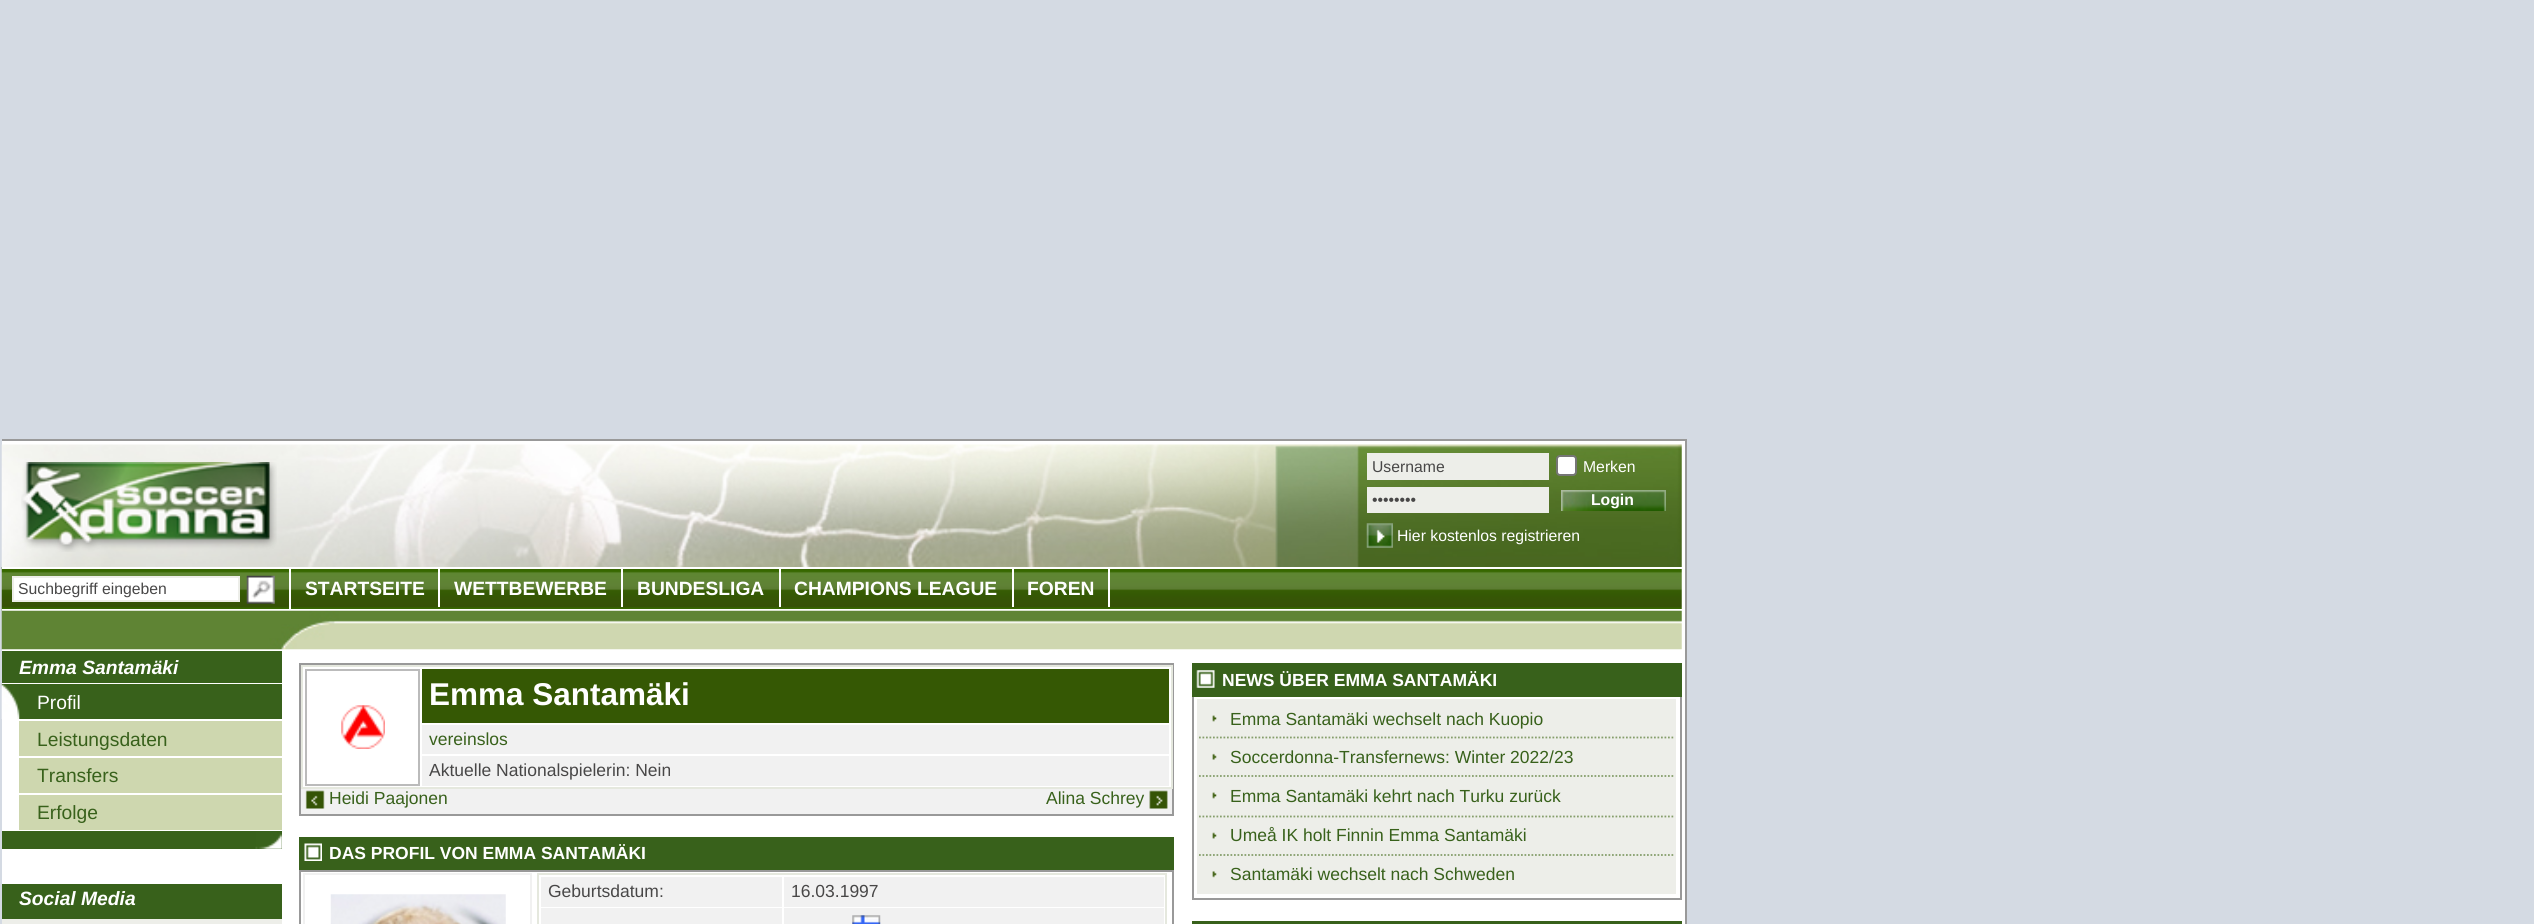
#include <cairo/cairo.h>
#include <math.h>
#include <stddef.h>

typedef struct { double x, y; const char *s; } line_t;
typedef struct { double x, y, w, h; unsigned color; } box_t;
static cairo_t *cr;

static void rgb(unsigned color)
{
	cairo_set_source_rgb(cr, (color >> 16) / 255.0, (color >> 8 & 255) / 255.0, (color & 255) / 255.0);
}

static void rrect(double x, double y, double w, double h, double r)
{
	cairo_new_sub_path(cr);
	cairo_arc(cr, x + w - r, y + h - r, r, 0, M_PI / 2);
	cairo_arc(cr, x + r, y + h - r, r, M_PI / 2, M_PI);
	cairo_arc(cr, x + r, y + r, r, M_PI, 1.5 * M_PI);
	cairo_arc(cr, x + w - r, y + r, r, 1.5 * M_PI, 2 * M_PI);
	cairo_close_path(cr);
}

static void image(const char *path, double x, double y, double w, double h)
{
	cairo_surface_t *image = cairo_image_surface_create_from_png(path);
	cairo_save(cr);
	cairo_set_source_surface(cr, image, x, y);
	cairo_rectangle(cr, x, y, w, h);
	cairo_fill(cr);
	cairo_restore(cr);
	cairo_surface_destroy(image);
}

int main(void) {
	cairo_surface_t *surface = cairo_image_surface_create(CAIRO_FORMAT_RGB24, 2534, 924);
	cr = cairo_create(surface);
	cairo_font_options_t *options = cairo_font_options_create();
	cairo_font_options_set_hint_metrics(options, CAIRO_HINT_METRICS_OFF);
	cairo_font_options_set_hint_style(options, CAIRO_HINT_STYLE_NONE);
	cairo_set_font_options(cr, options);
	cairo_set_miter_limit(cr, 4);
	rgb(0xd4dae3);
	cairo_paint(cr);
	rgb(0xffffff);
	cairo_rectangle(cr, 2, 441, 1683, 483);
	cairo_fill(cr);
	image("img/1.png", 1, 444, 1681, 123);
	image("img/2.png", 21, 462, 256, 90);
	rgb(0xedeee9);
	cairo_rectangle(cr, 1367, 453, 182, 27);
	cairo_fill(cr);
	rgb(0xffffff);
	rrect(1557, 456, 19, 19, 3);
	cairo_fill_preserve(cr);
	rgb(0x767676);
	cairo_stroke(cr);
	rgb(0xedeee9);
	cairo_rectangle(cr, 1367, 487, 182, 26);
	cairo_fill(cr);
	image("img/3.png", 1561, 490, 105, 21);
	image("img/4.png", 1366, 523, 27, 25);
	image("img/5.png", 1, 567, 1681, 44);
	{
		static const box_t items[] = {
			{2, 567, 1680, 2, 0xffffff},
			{2, 609, 1680, 2, 0xffffff},
			{289, 569, 2, 40, 0xffffff},
		};
		for (size_t i = 0; i < sizeof items / sizeof *items; i++) {
			rgb(items[i].color);
			cairo_rectangle(cr, items[i].x, items[i].y, items[i].w, items[i].h);
			cairo_fill(cr);
		}
	}
	cairo_rectangle(cr, 13, 577, 226, 24);
	cairo_fill_preserve(cr);
	rgb(0xedeee9);
	cairo_stroke(cr);
	image("img/6.png", 246, 575, 29, 29);
	{
		static const box_t items[] = {
			{438, 569, 2, 38, 0xffffff},
			{621, 569, 2, 38, 0xffffff},
			{779, 569, 2, 38, 0xffffff},
			{1012, 569, 2, 38, 0xffffff},
			{1108, 569, 2, 38, 0xffffff},
		};
		for (size_t i = 0; i < sizeof items / sizeof *items; i++) {
			rgb(items[i].color);
			cairo_rectangle(cr, items[i].x, items[i].y, items[i].w, items[i].h);
			cairo_fill(cr);
		}
	}
	image("img/7.png", 1, 610, 1681, 40);
	{
		static const box_t items[] = {
			{2, 439, 1685, 2, 0x999999},
			{1685, 439, 2, 485, 0x999999},
			{2, 651, 280, 32, 0x38611b},
			{2, 684, 280, 35, 0x38611b},
		};
		for (size_t i = 0; i < sizeof items / sizeof *items; i++) {
			rgb(items[i].color);
			cairo_rectangle(cr, items[i].x, items[i].y, items[i].w, items[i].h);
			cairo_fill(cr);
		}
	}
	image("img/8.png", 1, 684, 19, 35);
	{
		static const box_t items[] = {
			{19, 721, 263, 35, 0xced7af},
			{19, 758, 263, 35, 0xced7af},
			{19, 795, 263, 35, 0xced7af},
			{2, 831, 280, 18, 0x38611b},
		};
		for (size_t i = 0; i < sizeof items / sizeof *items; i++) {
			rgb(items[i].color);
			cairo_rectangle(cr, items[i].x, items[i].y, items[i].w, items[i].h);
			cairo_fill(cr);
		}
	}
	image("img/9.png", 255, 831, 27, 18);
	{
		static const box_t items[] = {
			{2, 884, 280, 35, 0x38611b},
			{2, 919, 280, 5, 0xedeee9},
			{301, 789, 871, 25, 0xf1f1f1},
		};
		for (size_t i = 0; i < sizeof items / sizeof *items; i++) {
			rgb(items[i].color);
			cairo_rectangle(cr, items[i].x, items[i].y, items[i].w, items[i].h);
			cairo_fill(cr);
		}
	}
	cairo_rectangle(cr, 300, 664, 873, 151);
	rgb(0x999999);
	cairo_stroke(cr);
	cairo_rectangle(cr, 302, 666, 870, 122);
	rgb(0xe5e8de);
	cairo_stroke(cr);
	cairo_rectangle(cr, 306, 670, 113, 115);
	rgb(0xbbbbbb);
	cairo_stroke(cr);
	image("img/10.png", 341, 705, 44, 44);
	{
		static const box_t items[] = {
			{422, 669, 747, 54, 0x355804},
			{422, 725, 747, 29, 0xf1f1f1},
			{422, 756, 747, 30, 0xf1f1f1},
		};
		for (size_t i = 0; i < sizeof items / sizeof *items; i++) {
			rgb(items[i].color);
			cairo_rectangle(cr, items[i].x, items[i].y, items[i].w, items[i].h);
			cairo_fill(cr);
		}
	}
	image("img/11.png", 305, 790, 20, 19);
	image("img/12.png", 1149, 790, 19, 19);
	rgb(0x38611b);
	cairo_rectangle(cr, 299, 837, 875, 33);
	cairo_fill(cr);
	image("img/13.png", 304, 843, 18, 18);
	cairo_rectangle(cr, 300, 871, 873, 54);
	rgb(0x999999);
	cairo_stroke(cr);
	cairo_rectangle(cr, 304, 874, 227, 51);
	rgb(0xf1f1f1);
	cairo_stroke(cr);
	image("img/14.png", 330, 894, 176, 30);
	cairo_rectangle(cr, 538, 874, 628, 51);
	rgb(0xe5e8de);
	cairo_stroke(cr);
	{
		static const box_t items[] = {
			{541, 877, 241, 30, 0xf1f1f1},
			{784, 877, 380, 30, 0xf1f1f1},
			{541, 908, 241, 16, 0xf1f1f1},
			{784, 908, 380, 16, 0xf1f1f1},
		};
		for (size_t i = 0; i < sizeof items / sizeof *items; i++) {
			rgb(items[i].color);
			cairo_rectangle(cr, items[i].x, items[i].y, items[i].w, items[i].h);
			cairo_fill(cr);
		}
	}
	image("img/15.png", 852, 915, 29, 9);
	rgb(0x38611b);
	cairo_rectangle(cr, 1192, 663, 490, 34);
	cairo_fill(cr);
	image("img/16.png", 1196, 670, 19, 18);
	{
		static const box_t items[] = {
			{1680, 697, 2, 203, 0x999999},
			{1192, 898, 490, 2, 0x999999},
			{1192, 697, 2, 203, 0x999999},
			{1197, 699, 479, 195, 0xedeee9},
		};
		for (size_t i = 0; i < sizeof items / sizeof *items; i++) {
			rgb(items[i].color);
			cairo_rectangle(cr, items[i].x, items[i].y, items[i].w, items[i].h);
			cairo_fill(cr);
		}
	}
	cairo_new_path(cr);
	cairo_move_to(cr, 1199, 737.5);
	cairo_line_to(cr, 1675, 737.5);
	rgb(0x869e6c);
	cairo_set_line_width(cr, 1.8);
	cairo_set_dash(cr, (double[]){1.75, 1.75}, 2, 0);
	cairo_stroke(cr);
	image("img/17.png", 1212, 715, 5, 7);
	cairo_new_path(cr);
	cairo_move_to(cr, 1199, 776);
	cairo_line_to(cr, 1675, 776);
	cairo_stroke(cr);
	image("img/18.png", 1212, 753, 5, 7);
	cairo_new_path(cr);
	cairo_move_to(cr, 1199, 816.5);
	cairo_line_to(cr, 1675, 816.5);
	cairo_stroke(cr);
	image("img/17.png", 1212, 792, 5, 7);
	cairo_new_path(cr);
	cairo_move_to(cr, 1199, 855);
	cairo_line_to(cr, 1675, 855);
	cairo_stroke(cr);
	image("img/19.png", 1212, 832, 5, 7);
	image("img/20.png", 1212, 871, 5, 7);
	rgb(0x38611b);
	cairo_rectangle(cr, 1192, 921, 490, 3);
	cairo_fill(cr);
	cairo_select_font_face(cr, "Liberation Sans", CAIRO_FONT_SLANT_NORMAL, CAIRO_FONT_WEIGHT_NORMAL);
	cairo_set_font_size(cr, 15.75);
	rgb(0x484747);
	cairo_move_to(cr, 1372, 472);
	cairo_show_text(cr, "Username");
	rgb(0xffffff);
	cairo_move_to(cr, 1583, 472);
	cairo_show_text(cr, "Merken");
	rgb(0x484747);
	cairo_move_to(cr, 1372, 505);
	cairo_show_text(cr, "••••••••");
	cairo_select_font_face(cr, "Liberation Sans", CAIRO_FONT_SLANT_NORMAL, CAIRO_FONT_WEIGHT_BOLD);
	rgb(0xffffff);
	cairo_move_to(cr, 1591, 505);
	cairo_show_text(cr, "Login");
	cairo_select_font_face(cr, "Liberation Sans", CAIRO_FONT_SLANT_NORMAL, CAIRO_FONT_WEIGHT_NORMAL);
	cairo_move_to(cr, 1397, 541);
	cairo_show_text(cr, "Hier kostenlos registrieren");
	rgb(0x484747);
	cairo_move_to(cr, 18, 594);
	cairo_show_text(cr, "Suchbegriff eingeben");
	cairo_select_font_face(cr, "Liberation Sans", CAIRO_FONT_SLANT_NORMAL, CAIRO_FONT_WEIGHT_BOLD);
	cairo_set_font_size(cr, 19.25);
	rgb(0xffffff);
	{
		static const line_t items[] = {
			{305, 595, "STARTSEITE"},
			{454, 595, "WETTBEWERBE"},
			{637, 595, "BUNDESLIGA"},
			{794, 595, "CHAMPIONS LEAGUE"},
			{1027, 595, "FOREN"},
		};
		for (size_t i = 0; i < sizeof items / sizeof *items; i++) {
			cairo_move_to(cr, items[i].x, items[i].y);
			cairo_show_text(cr, items[i].s);
		}
	}
	cairo_select_font_face(cr, "Liberation Sans", CAIRO_FONT_SLANT_ITALIC, CAIRO_FONT_WEIGHT_BOLD);
	cairo_move_to(cr, 19, 674);
	cairo_show_text(cr, "Emma Santamäki");
	cairo_select_font_face(cr, "Liberation Sans", CAIRO_FONT_SLANT_NORMAL, CAIRO_FONT_WEIGHT_NORMAL);
	cairo_move_to(cr, 37, 709);
	cairo_show_text(cr, "Profil");
	rgb(0x38611b);
	{
		static const line_t items[] = {
			{37, 746, "Leistungsdaten"},
			{37, 782, "Transfers"},
			{37, 819, "Erfolge"},
		};
		for (size_t i = 0; i < sizeof items / sizeof *items; i++) {
			cairo_move_to(cr, items[i].x, items[i].y);
			cairo_show_text(cr, items[i].s);
		}
	}
	cairo_select_font_face(cr, "Liberation Sans", CAIRO_FONT_SLANT_ITALIC, CAIRO_FONT_WEIGHT_BOLD);
	rgb(0xffffff);
	cairo_move_to(cr, 19, 905);
	cairo_show_text(cr, "Social Media");
	cairo_select_font_face(cr, "Liberation Sans", CAIRO_FONT_SLANT_NORMAL, CAIRO_FONT_WEIGHT_BOLD);
	cairo_set_font_size(cr, 31.5);
	cairo_move_to(cr, 429, 705);
	cairo_show_text(cr, "Emma Santamäki");
	cairo_select_font_face(cr, "Liberation Sans", CAIRO_FONT_SLANT_NORMAL, CAIRO_FONT_WEIGHT_NORMAL);
	cairo_set_font_size(cr, 17.5);
	rgb(0x38611b);
	cairo_move_to(cr, 429, 745);
	cairo_show_text(cr, "vereinslos");
	rgb(0x484747);
	cairo_move_to(cr, 429, 776);
	cairo_show_text(cr, "Aktuelle Nationalspielerin: Nein");
	rgb(0x38611b);
	cairo_move_to(cr, 329, 804);
	cairo_show_text(cr, "Heidi Paajonen");
	cairo_move_to(cr, 1046, 804);
	cairo_show_text(cr, "Alina Schrey");
	cairo_select_font_face(cr, "Liberation Sans", CAIRO_FONT_SLANT_NORMAL, CAIRO_FONT_WEIGHT_BOLD);
	rgb(0xffffff);
	cairo_move_to(cr, 329, 859);
	cairo_show_text(cr, "DAS PROFIL VON EMMA SANTAMÄKI");
	cairo_select_font_face(cr, "Liberation Sans", CAIRO_FONT_SLANT_NORMAL, CAIRO_FONT_WEIGHT_NORMAL);
	rgb(0x484747);
	cairo_move_to(cr, 548, 897);
	cairo_show_text(cr, "Geburtsdatum:");
	cairo_move_to(cr, 791, 897);
	cairo_show_text(cr, "16.03.1997");
	cairo_select_font_face(cr, "Liberation Sans", CAIRO_FONT_SLANT_NORMAL, CAIRO_FONT_WEIGHT_BOLD);
	rgb(0xffffff);
	cairo_move_to(cr, 1222, 686);
	cairo_show_text(cr, "NEWS ÜBER EMMA SANTAMÄKI");
	cairo_select_font_face(cr, "Liberation Sans", CAIRO_FONT_SLANT_NORMAL, CAIRO_FONT_WEIGHT_NORMAL);
	rgb(0x38611b);
	{
		static const line_t items[] = {
			{1230, 725, "Emma Santamäki wechselt nach Kuopio"},
			{1230, 763, "Soccerdonna-Transfernews: Winter 2022/23"},
			{1230, 802, "Emma Santamäki kehrt nach Turku zurück"},
			{1230, 841, "Umeå IK holt Finnin Emma Santamäki"},
			{1230, 880, "Santamäki wechselt nach Schweden"},
		};
		for (size_t i = 0; i < sizeof items / sizeof *items; i++) {
			cairo_move_to(cr, items[i].x, items[i].y);
			cairo_show_text(cr, items[i].s);
		}
	}
	cairo_surface_write_to_png(surface, "page.png");
	cairo_font_options_destroy(options);
	cairo_destroy(cr);
	cairo_surface_destroy(surface);
	return 0;
}
